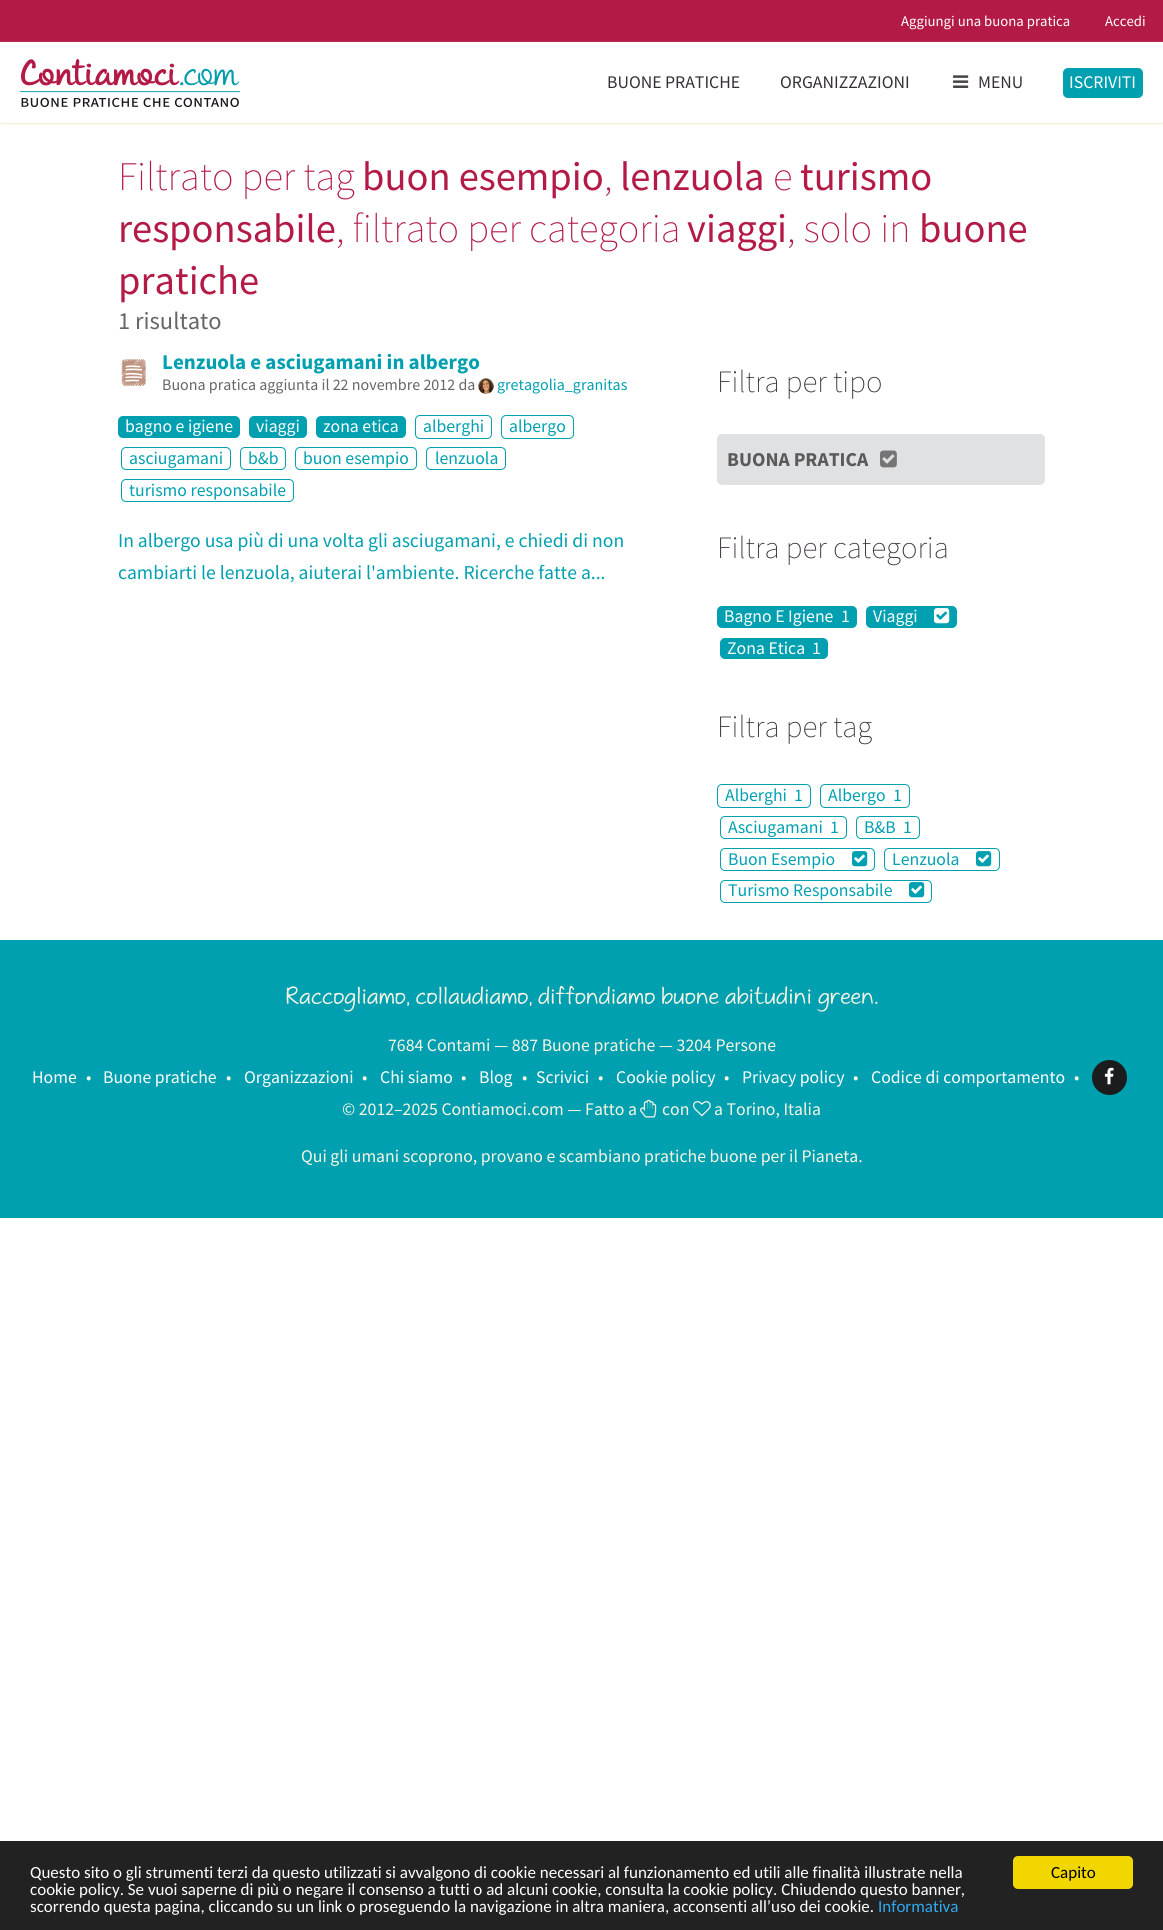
#include <cairo/cairo.h>
#include <math.h>
#include <stddef.h>

typedef struct { double x, y; const char *s; } line_t;
static cairo_t *cr;

static void rgb(unsigned color)
{
	cairo_set_source_rgb(cr, (color >> 16) / 255.0, (color >> 8 & 255) / 255.0, (color & 255) / 255.0);
}

static void rrect(double x, double y, double w, double h, double r)
{
	cairo_new_sub_path(cr);
	cairo_arc(cr, x + w - r, y + h - r, r, 0, M_PI / 2);
	cairo_arc(cr, x + r, y + h - r, r, M_PI / 2, M_PI);
	cairo_arc(cr, x + r, y + r, r, M_PI, 1.5 * M_PI);
	cairo_arc(cr, x + w - r, y + r, r, 1.5 * M_PI, 2 * M_PI);
	cairo_close_path(cr);
}

static void soft_shadow(double x, double y, double w, double h, double r, double blur, double alpha)
{
	cairo_push_group_with_content(cr, CAIRO_CONTENT_ALPHA);
	cairo_set_operator(cr, CAIRO_OPERATOR_SOURCE);
	for (int i = 15; i >= -15 && fmin(w, h) + blur * i / 3 > 0; i -= 2) {
		double e = blur * i / 6;
		cairo_set_source_rgba(cr, 0, 0, 0, alpha * erfc((i - 1) / 8.5) / 2);
		rrect(x - e, y - e, w + 2 * e, h + 2 * e, fmax(0, fmin(r + e + blur * .6, fmin(w, h) / 2 + e)));
		cairo_fill(cr);
	}
	cairo_pattern_t *soft = cairo_pop_group(cr);
	cairo_mask(cr, soft);
	cairo_pattern_destroy(soft);
}

static void image(const char *path, double x, double y, double w, double h)
{
	cairo_surface_t *image = cairo_image_surface_create_from_png(path);
	cairo_save(cr);
	cairo_set_source_surface(cr, image, x, y);
	cairo_rectangle(cr, x, y, w, h);
	cairo_fill(cr);
	cairo_restore(cr);
	cairo_surface_destroy(image);
}

int main(void) {
	cairo_surface_t *surface = cairo_image_surface_create(CAIRO_FORMAT_RGB24, 1163, 1930);
	cr = cairo_create(surface);
	cairo_font_options_t *options = cairo_font_options_create();
	cairo_font_options_set_hint_metrics(options, CAIRO_HINT_METRICS_OFF);
	cairo_font_options_set_hint_style(options, CAIRO_HINT_STYLE_NONE);
	cairo_set_font_options(cr, options);
	cairo_set_miter_limit(cr, 4);
	rgb(0xffffff);
	cairo_paint(cr);
	rgb(0xb31b46);
	cairo_rectangle(cr, 0, 0, 1163, 42);
	cairo_fill(cr);
	cairo_save(cr);
	cairo_set_fill_rule(cr, CAIRO_FILL_RULE_EVEN_ODD);
	cairo_new_path(cr);
	cairo_move_to(cr, 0, 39);
	cairo_line_to(cr, 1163, 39);
	cairo_line_to(cr, 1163, 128);
	cairo_line_to(cr, 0, 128);
	cairo_close_path(cr);
	cairo_move_to(cr, 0, 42);
	cairo_line_to(cr, 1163, 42);
	cairo_line_to(cr, 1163, 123);
	cairo_line_to(cr, 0, 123);
	cairo_close_path(cr);
	cairo_clip(cr);
	rgb(0xf4edcf);
	soft_shadow(0, 43, 1163, 81, 0, 1, 1);
	cairo_restore(cr);
	image("img/1.png", 20, 59, 220, 48);
	image("img/2.png", 953, 75, 16, 13);
	rgb(0x00a0b0);
	rrect(1063, 68, 80, 30, 5);
	cairo_fill(cr);
	image("img/3.png", 121, 359, 26, 28);
	image("img/4.png", 478, 378, 16, 16);
	rrect(118, 416, 122, 22, 5);
	cairo_fill(cr);
	rrect(249, 416, 58, 22, 5);
	cairo_fill(cr);
	rrect(316, 416, 90, 22, 5);
	cairo_fill(cr);
	rrect(415.5, 415.5, 76, 23, 4.5);
	cairo_set_line_width(cr, 1);
	cairo_stroke(cr);
	rrect(501.5, 415.5, 72, 23, 4.5);
	cairo_stroke(cr);
	rrect(121.5, 447.5, 109, 22, 4.5);
	cairo_stroke(cr);
	rrect(240.5, 447.5, 45, 22, 4.5);
	cairo_stroke(cr);
	rrect(295.5, 447.5, 121, 22, 4.5);
	cairo_stroke(cr);
	rrect(426.5, 447.5, 79, 22, 4.5);
	cairo_stroke(cr);
	rrect(121.5, 479.5, 172, 22, 4.5);
	cairo_stroke(cr);
	rgb(0xe0e1e2);
	rrect(717, 434, 328, 51, 5);
	cairo_fill(cr);
	image("img/5.png", 880, 450, 17, 18);
	rgb(0x00a0b0);
	rrect(717, 606, 140, 22, 5);
	cairo_fill(cr);
	rrect(866, 606, 91, 22, 5);
	cairo_fill(cr);
	image("img/6.png", 934, 608, 16, 16);
	rrect(720, 638, 108, 21, 5);
	cairo_fill(cr);
	rrect(717.5, 784.5, 93, 23, 4.5);
	cairo_stroke(cr);
	rrect(820.5, 784.5, 89, 23, 4.5);
	cairo_stroke(cr);
	rrect(720.5, 816.5, 126, 22, 4.5);
	cairo_stroke(cr);
	rrect(856.5, 816.5, 63, 22, 4.5);
	cairo_stroke(cr);
	rrect(720.5, 848.5, 154, 22, 4.5);
	cairo_stroke(cr);
	image("img/7.png", 852, 851, 16, 16);
	rrect(884.5, 848.5, 115, 22, 4.5);
	cairo_stroke(cr);
	image("img/7.png", 976, 851, 16, 16);
	rrect(720.5, 880.5, 211, 22, 4.5);
	cairo_stroke(cr);
	image("img/7.png", 909, 882, 16, 16);
	cairo_rectangle(cr, 0, 940, 1163, 278);
	cairo_fill(cr);
	rgb(0x1b1c1d);
	cairo_arc(cr, 1109.5, 1077.5, 17.5, 0, 2 * M_PI);
	cairo_fill(cr);
	image("img/8.png", 1104, 1067, 10, 18);
	image("img/9.png", 640, 1099, 17, 19);
	image("img/10.png", 693, 1101, 18, 16);
	rgb(0x222222);
	cairo_rectangle(cr, 0, 1841, 1163, 89);
	cairo_fill(cr);
	rgb(0xf1d600);
	rrect(1013, 1856, 120, 33, 5);
	cairo_fill(cr);
	cairo_select_font_face(cr, "Source Sans Pro", CAIRO_FONT_SLANT_NORMAL, CAIRO_FONT_WEIGHT_NORMAL);
	cairo_set_font_size(cr, 14.75);
	rgb(0xffffff);
	cairo_move_to(cr, 901, 26);
	cairo_show_text(cr, "Aggiungi una buona pratica");
	cairo_move_to(cr, 1105, 26);
	cairo_show_text(cr, "Accedi");
	cairo_set_font_size(cr, 17.75);
	rgb(0x353036);
	{
		static const line_t items[] = {
			{607, 88, "BUONE PRATICHE"},
			{780, 88, "ORGANIZZAZIONI"},
			{978, 88, "MENU"},
		};
		for (size_t i = 0; i < sizeof items / sizeof *items; i++) {
			cairo_move_to(cr, items[i].x, items[i].y);
			cairo_show_text(cr, items[i].s);
		}
	}
	rgb(0xffffff);
	cairo_move_to(cr, 1069, 88);
	cairo_show_text(cr, "ISCRIVITI");
	cairo_select_font_face(cr, "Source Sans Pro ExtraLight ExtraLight", CAIRO_FONT_SLANT_NORMAL, CAIRO_FONT_WEIGHT_NORMAL);
	cairo_set_font_size(cr, 40.5);
	rgb(0xb31b46);
	cairo_move_to(cr, 118, 190);
	cairo_show_text(cr, "Filtrato per tag");
	cairo_select_font_face(cr, "Source Sans Pro", CAIRO_FONT_SLANT_NORMAL, CAIRO_FONT_WEIGHT_NORMAL);
	cairo_move_to(cr, 362, 190);
	cairo_show_text(cr, "buon esempio");
	cairo_move_to(cr, 620, 190);
	cairo_show_text(cr, "lenzuola");
	cairo_select_font_face(cr, "Source Sans Pro ExtraLight ExtraLight", CAIRO_FONT_SLANT_NORMAL, CAIRO_FONT_WEIGHT_NORMAL);
	cairo_move_to(cr, 773, 190);
	cairo_show_text(cr, "e");
	cairo_select_font_face(cr, "Source Sans Pro", CAIRO_FONT_SLANT_NORMAL, CAIRO_FONT_WEIGHT_NORMAL);
	cairo_move_to(cr, 800, 190);
	cairo_show_text(cr, "turismo");
	cairo_select_font_face(cr, "Source Sans Pro ExtraLight ExtraLight", CAIRO_FONT_SLANT_NORMAL, CAIRO_FONT_WEIGHT_NORMAL);
	cairo_move_to(cr, 604, 190);
	cairo_show_text(cr, ",");
	cairo_select_font_face(cr, "Source Sans Pro", CAIRO_FONT_SLANT_NORMAL, CAIRO_FONT_WEIGHT_NORMAL);
	cairo_move_to(cr, 118, 242);
	cairo_show_text(cr, "responsabile");
	cairo_select_font_face(cr, "Source Sans Pro ExtraLight ExtraLight", CAIRO_FONT_SLANT_NORMAL, CAIRO_FONT_WEIGHT_NORMAL);
	cairo_move_to(cr, 336, 242);
	cairo_show_text(cr, ", filtrato per categoria");
	cairo_select_font_face(cr, "Source Sans Pro", CAIRO_FONT_SLANT_NORMAL, CAIRO_FONT_WEIGHT_NORMAL);
	cairo_move_to(cr, 687, 242);
	cairo_show_text(cr, "viaggi");
	cairo_select_font_face(cr, "Source Sans Pro ExtraLight ExtraLight", CAIRO_FONT_SLANT_NORMAL, CAIRO_FONT_WEIGHT_NORMAL);
	cairo_move_to(cr, 787, 242);
	cairo_show_text(cr, ", solo in");
	cairo_select_font_face(cr, "Source Sans Pro", CAIRO_FONT_SLANT_NORMAL, CAIRO_FONT_WEIGHT_NORMAL);
	cairo_move_to(cr, 919, 242);
	cairo_show_text(cr, "buone");
	cairo_move_to(cr, 118, 294);
	cairo_show_text(cr, "pratiche");
	cairo_set_font_size(cr, 24.5);
	rgb(0x666666);
	cairo_move_to(cr, 118, 329);
	cairo_show_text(cr, "1 risultato");
	cairo_select_font_face(cr, "Source Sans Pro", CAIRO_FONT_SLANT_NORMAL, CAIRO_FONT_WEIGHT_BOLD);
	cairo_set_font_size(cr, 21);
	rgb(0x00a0b0);
	cairo_move_to(cr, 162, 369);
	cairo_show_text(cr, "Lenzuola e asciugamani in albergo");
	cairo_select_font_face(cr, "Source Sans Pro", CAIRO_FONT_SLANT_NORMAL, CAIRO_FONT_WEIGHT_NORMAL);
	cairo_set_font_size(cr, 16);
	rgb(0x666666);
	cairo_move_to(cr, 162, 390);
	cairo_show_text(cr, "Buona pratica aggiunta il 22 novembre 2012 da");
	rgb(0x00a0b0);
	cairo_move_to(cr, 497, 390);
	cairo_show_text(cr, "gretagolia_granitas");
	cairo_set_font_size(cr, 17.75);
	rgb(0xffffff);
	{
		static const line_t items[] = {
			{125, 432, "bagno e igiene"},
			{256, 432, "viaggi"},
			{323, 432, "zona etica"},
		};
		for (size_t i = 0; i < sizeof items / sizeof *items; i++) {
			cairo_move_to(cr, items[i].x, items[i].y);
			cairo_show_text(cr, items[i].s);
		}
	}
	rgb(0x00a0b0);
	{
		static const line_t items[] = {
			{423, 432, "alberghi"},
			{509, 432, "albergo"},
			{129, 464, "asciugamani"},
			{248, 464, "b&b"},
			{303, 464, "buon esempio"},
			{435, 464, "lenzuola"},
			{129, 496, "turismo responsabile"},
		};
		for (size_t i = 0; i < sizeof items / sizeof *items; i++) {
			cairo_move_to(cr, items[i].x, items[i].y);
			cairo_show_text(cr, items[i].s);
		}
	}
	cairo_set_font_size(cr, 19.65);
	cairo_move_to(cr, 118, 547);
	cairo_show_text(cr, "In albergo usa più di una volta gli asciugamani, e chiedi di non");
	cairo_move_to(cr, 118, 579);
	cairo_show_text(cr, "cambiarti le lenzuola, aiuterai l'ambiente. Ricerche fatte a...");
	cairo_select_font_face(cr, "Source Sans Pro ExtraLight ExtraLight", CAIRO_FONT_SLANT_NORMAL, CAIRO_FONT_WEIGHT_NORMAL);
	cairo_set_font_size(cr, 31);
	rgb(0x353036);
	cairo_move_to(cr, 717, 392);
	cairo_show_text(cr, "Filtra per tipo");
	cairo_select_font_face(cr, "Source Sans Pro", CAIRO_FONT_SLANT_NORMAL, CAIRO_FONT_WEIGHT_BOLD);
	cairo_set_font_size(cr, 19.65);
	rgb(0x5a5a5a);
	cairo_move_to(cr, 727, 466);
	cairo_show_text(cr, "BUONA PRATICA");
	cairo_select_font_face(cr, "Source Sans Pro ExtraLight ExtraLight", CAIRO_FONT_SLANT_NORMAL, CAIRO_FONT_WEIGHT_NORMAL);
	cairo_set_font_size(cr, 31);
	rgb(0x353036);
	cairo_move_to(cr, 717, 558);
	cairo_show_text(cr, "Filtra per categoria");
	cairo_select_font_face(cr, "Source Sans Pro", CAIRO_FONT_SLANT_NORMAL, CAIRO_FONT_WEIGHT_NORMAL);
	cairo_set_font_size(cr, 17.75);
	rgb(0xffffff);
	{
		static const line_t items[] = {
			{724, 622, "Bagno E Igiene"},
			{841, 622, "1"},
			{873, 622, "Viaggi"},
			{727, 654, "Zona Etica"},
			{812, 654, "1"},
		};
		for (size_t i = 0; i < sizeof items / sizeof *items; i++) {
			cairo_move_to(cr, items[i].x, items[i].y);
			cairo_show_text(cr, items[i].s);
		}
	}
	cairo_select_font_face(cr, "Source Sans Pro ExtraLight ExtraLight", CAIRO_FONT_SLANT_NORMAL, CAIRO_FONT_WEIGHT_NORMAL);
	cairo_set_font_size(cr, 31);
	rgb(0x353036);
	cairo_move_to(cr, 717, 737);
	cairo_show_text(cr, "Filtra per tag");
	cairo_select_font_face(cr, "Source Sans Pro", CAIRO_FONT_SLANT_NORMAL, CAIRO_FONT_WEIGHT_NORMAL);
	cairo_set_font_size(cr, 17.75);
	rgb(0x00a0b0);
	{
		static const line_t items[] = {
			{725, 801, "Alberghi"},
			{794, 801, "1"},
			{828, 801, "Albergo"},
			{893, 801, "1"},
			{728, 833, "Asciugamani"},
			{830, 833, "1"},
			{864, 833, "B&B"},
			{903, 833, "1"},
			{728, 865, "Buon Esempio"},
			{892, 865, "Lenzuola"},
			{728, 896, "Turismo Responsabile"},
		};
		for (size_t i = 0; i < sizeof items / sizeof *items; i++) {
			cairo_move_to(cr, items[i].x, items[i].y);
			cairo_show_text(cr, items[i].s);
		}
	}
	cairo_select_font_face(cr, "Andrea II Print", CAIRO_FONT_SLANT_NORMAL, CAIRO_FONT_WEIGHT_NORMAL);
	cairo_set_font_size(cr, 23.4);
	rgb(0xf9f5e4);
	cairo_move_to(cr, 286, 1004);
	cairo_show_text(cr, "Raccogliamo, collaudiamo, diffondiamo buone abitudini green.");
	cairo_select_font_face(cr, "Source Sans Pro", CAIRO_FONT_SLANT_NORMAL, CAIRO_FONT_WEIGHT_NORMAL);
	cairo_set_font_size(cr, 17.75);
	cairo_move_to(cr, 388, 1051);
	cairo_show_text(cr, "7684 Contami — 887 Buone pratiche — 3204 Persone");
	rgb(0xffffff);
	cairo_move_to(cr, 32, 1083);
	cairo_show_text(cr, "Home");
	rgb(0xf9f5e4);
	cairo_move_to(cr, 86, 1083);
	cairo_show_text(cr, "•");
	rgb(0xffffff);
	cairo_move_to(cr, 103, 1083);
	cairo_show_text(cr, "Buone pratiche");
	rgb(0xf9f5e4);
	cairo_move_to(cr, 226, 1083);
	cairo_show_text(cr, "•");
	rgb(0xffffff);
	cairo_move_to(cr, 244, 1083);
	cairo_show_text(cr, "Organizzazioni");
	rgb(0xf9f5e4);
	cairo_move_to(cr, 362, 1083);
	cairo_show_text(cr, "•");
	rgb(0xffffff);
	cairo_move_to(cr, 380, 1083);
	cairo_show_text(cr, "Chi siamo");
	rgb(0xf9f5e4);
	cairo_move_to(cr, 461, 1083);
	cairo_show_text(cr, "•");
	rgb(0xffffff);
	cairo_move_to(cr, 479, 1083);
	cairo_show_text(cr, "Blog");
	rgb(0xf9f5e4);
	cairo_move_to(cr, 522, 1083);
	cairo_show_text(cr, "•");
	rgb(0xffffff);
	cairo_move_to(cr, 536, 1083);
	cairo_show_text(cr, "Scrivici");
	rgb(0xf9f5e4);
	cairo_move_to(cr, 598, 1083);
	cairo_show_text(cr, "•");
	rgb(0xffffff);
	cairo_move_to(cr, 616, 1083);
	cairo_show_text(cr, "Cookie policy");
	rgb(0xf9f5e4);
	cairo_move_to(cr, 724, 1083);
	cairo_show_text(cr, "•");
	rgb(0xffffff);
	cairo_move_to(cr, 742, 1083);
	cairo_show_text(cr, "Privacy policy");
	rgb(0xf9f5e4);
	cairo_move_to(cr, 853, 1083);
	cairo_show_text(cr, "•");
	rgb(0xffffff);
	cairo_move_to(cr, 871, 1083);
	cairo_show_text(cr, "Codice di comportamento");
	rgb(0xf9f5e4);
	{
		static const line_t items[] = {
			{1074, 1083, "•"},
			{342, 1115, "© 2012–2025 Contiamoci.com — Fatto a"},
			{662, 1115, "con"},
			{714, 1115, "a Torino, Italia"},
			{301, 1162, "Qui gli umani scoprono, provano e scambiano pratiche buone per il Pianeta."},
		};
		for (size_t i = 0; i < sizeof items / sizeof *items; i++) {
			cairo_move_to(cr, items[i].x, items[i].y);
			cairo_show_text(cr, items[i].s);
		}
	}
	cairo_select_font_face(cr, "Carlito", CAIRO_FONT_SLANT_NORMAL, CAIRO_FONT_WEIGHT_NORMAL);
	cairo_set_font_size(cr, 17);
	rgb(0xffffff);
	{
		static const line_t items[] = {
			{30, 1878, "Questo sito o gli strumenti terzi da questo utilizzati si avvalgono di cookie necessari al funzionamento ed utili alle finalità illustrate nella"},
			{30, 1895, "cookie policy. Se vuoi saperne di più o negare il consenso a tutti o ad alcuni cookie, consulta la cookie policy. Chiudendo questo banner,"},
			{30, 1912, "scorrendo questa pagina, cliccando su un link o proseguendo la navigazione in altra maniera, acconsenti all’uso dei cookie."},
		};
		for (size_t i = 0; i < sizeof items / sizeof *items; i++) {
			cairo_move_to(cr, items[i].x, items[i].y);
			cairo_show_text(cr, items[i].s);
		}
	}
	rgb(0x31a8f0);
	cairo_move_to(cr, 878, 1912);
	cairo_show_text(cr, "Informativa");
	rgb(0x000000);
	cairo_move_to(cr, 1051, 1878);
	cairo_show_text(cr, "Capito");
	cairo_surface_write_to_png(surface, "page.png");
	cairo_font_options_destroy(options);
	cairo_destroy(cr);
	cairo_surface_destroy(surface);
	return 0;
}
